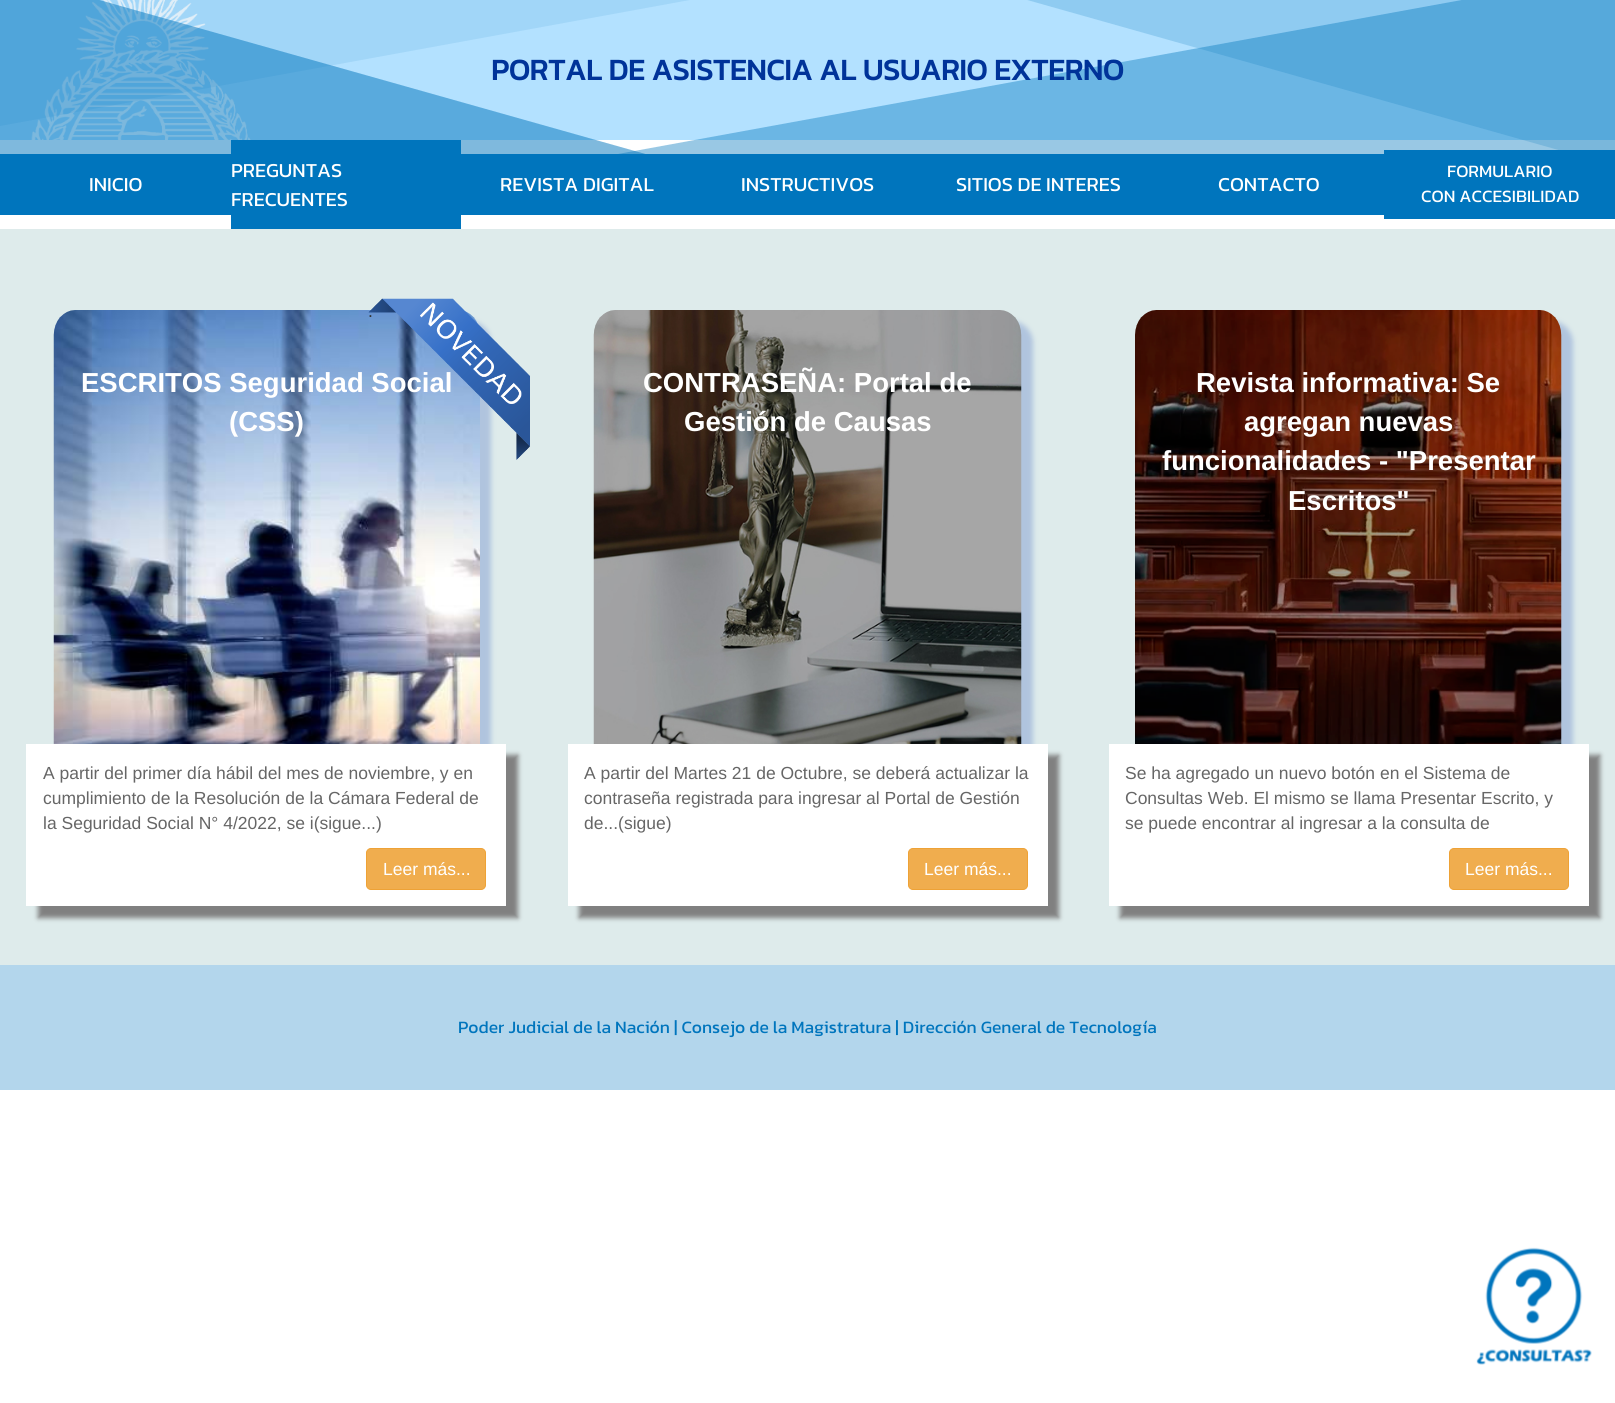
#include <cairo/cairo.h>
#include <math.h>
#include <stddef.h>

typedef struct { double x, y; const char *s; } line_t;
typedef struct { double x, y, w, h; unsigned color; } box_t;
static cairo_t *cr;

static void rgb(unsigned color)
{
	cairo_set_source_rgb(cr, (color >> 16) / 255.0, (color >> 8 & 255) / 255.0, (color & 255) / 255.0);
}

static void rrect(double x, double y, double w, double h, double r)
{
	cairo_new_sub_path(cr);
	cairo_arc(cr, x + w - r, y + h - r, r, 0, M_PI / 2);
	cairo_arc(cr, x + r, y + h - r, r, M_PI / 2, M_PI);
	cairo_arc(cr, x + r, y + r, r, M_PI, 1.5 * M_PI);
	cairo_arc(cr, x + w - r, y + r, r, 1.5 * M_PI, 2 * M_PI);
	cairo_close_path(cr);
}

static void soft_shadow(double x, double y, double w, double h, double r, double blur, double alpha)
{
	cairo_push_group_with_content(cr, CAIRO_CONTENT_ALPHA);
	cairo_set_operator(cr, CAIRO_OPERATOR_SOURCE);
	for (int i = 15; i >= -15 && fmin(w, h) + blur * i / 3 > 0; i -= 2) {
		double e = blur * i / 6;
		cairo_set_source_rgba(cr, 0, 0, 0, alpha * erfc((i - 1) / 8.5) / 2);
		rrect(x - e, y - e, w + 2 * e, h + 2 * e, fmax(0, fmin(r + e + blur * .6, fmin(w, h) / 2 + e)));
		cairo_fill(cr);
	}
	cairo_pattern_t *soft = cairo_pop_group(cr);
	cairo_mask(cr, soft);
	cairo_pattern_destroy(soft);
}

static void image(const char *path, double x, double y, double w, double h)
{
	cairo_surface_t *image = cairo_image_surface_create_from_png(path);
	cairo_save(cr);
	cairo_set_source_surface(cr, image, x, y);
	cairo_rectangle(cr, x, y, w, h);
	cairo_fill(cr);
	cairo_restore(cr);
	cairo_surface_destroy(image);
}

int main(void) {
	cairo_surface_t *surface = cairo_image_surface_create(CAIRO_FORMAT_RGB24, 1615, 1403);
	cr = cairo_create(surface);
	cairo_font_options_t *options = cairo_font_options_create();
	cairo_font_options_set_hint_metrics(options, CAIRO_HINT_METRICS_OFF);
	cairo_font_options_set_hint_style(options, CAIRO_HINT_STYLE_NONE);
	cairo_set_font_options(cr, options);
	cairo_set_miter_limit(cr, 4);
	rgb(0xffffff);
	cairo_paint(cr);
	rgb(0xb3e1ff);
	cairo_rectangle(cr, 0, 0, 1615, 140);
	cairo_fill(cr);
	image("img/1.png", 31, 0, 220, 140);
	cairo_set_source_rgba(cr, 0, 0.459, 0.741, 0.1);
	cairo_new_path(cr);
	cairo_move_to(cr, 0, 126);
	cairo_line_to(cr, 0, -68);
	cairo_line_to(cr, 1062, -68);
	cairo_close_path(cr);
	cairo_fill(cr);
	cairo_set_source_rgba(cr, 0, 0.459, 0.741, 0.4);
	cairo_new_path(cr);
	cairo_move_to(cr, 1615, -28);
	cairo_line_to(cr, 1615, 166);
	cairo_line_to(cr, 552, 166);
	cairo_close_path(cr);
	cairo_fill(cr);
	cairo_set_source_rgba(cr, 0, 0.459, 0.741, 0.5);
	cairo_new_path(cr);
	cairo_move_to(cr, 0, 166);
	cairo_line_to(cr, 0, -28);
	cairo_line_to(cr, 688, 166);
	cairo_close_path(cr);
	cairo_fill(cr);
	cairo_set_source_rgba(cr, 0, 0.459, 0.741, 0.2);
	cairo_new_path(cr);
	cairo_move_to(cr, 1615, -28);
	cairo_line_to(cr, 1615, 166);
	cairo_line_to(cr, 928, -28);
	cairo_close_path(cr);
	cairo_fill(cr);
	{
		static const box_t items[] = {
			{0, 154, 231, 61, 0x0075bd},
			{231, 140, 230, 89, 0x0075bd},
			{461, 154, 923, 61, 0x0075bd},
			{1384, 150, 231, 69, 0x0075bd},
			{0, 229, 1615, 736, 0xdeebeb},
		};
		for (size_t i = 0; i < sizeof items / sizeof *items; i++) {
			rgb(items[i].color);
			cairo_rectangle(cr, items[i].x, items[i].y, items[i].w, items[i].h);
			cairo_fill(cr);
		}
	}
	rgb(0xb0c4de);
	soft_shadow(65, 321, 426, 500, 21, 2.5, 1);
	image("img/3.png", 53, 310, 427, 434);
	rgb(0x808080);
	soft_shadow(38, 755, 480, 163, 0, 2.5, 1);
	rgb(0xffffff);
	cairo_rectangle(cr, 26, 744, 480, 162);
	cairo_fill(cr);
	rgb(0xf0ad4e);
	rrect(366.5, 848.5, 119, 41, 4.5);
	cairo_fill_preserve(cr);
	rgb(0xeea236);
	cairo_set_line_width(cr, 1);
	cairo_stroke(cr);
	rgb(0xb0c4de);
	soft_shadow(605, 321, 428, 500, 21, 2.5, 1);
	image("img/4.png", 593, 310, 429, 434);
	rgb(0x808080);
	soft_shadow(579, 755, 480, 163, 0, 2.5, 1);
	rgb(0xffffff);
	cairo_rectangle(cr, 568, 744, 480, 162);
	cairo_fill(cr);
	rgb(0xf0ad4e);
	rrect(908.5, 848.5, 119, 41, 4.5);
	cairo_fill_preserve(cr);
	rgb(0xeea236);
	cairo_stroke(cr);
	rgb(0xb0c4de);
	soft_shadow(1146, 321, 427, 500, 21, 2.5, 1);
	image("img/5.png", 1135, 310, 427, 434);
	rgb(0x808080);
	soft_shadow(1120, 755, 480, 163, 0, 2.5, 1);
	rgb(0xffffff);
	cairo_rectangle(cr, 1109, 744, 480, 162);
	cairo_fill(cr);
	rgb(0xf0ad4e);
	rrect(1449.5, 848.5, 119, 41, 4.5);
	cairo_fill_preserve(cr);
	rgb(0xeea236);
	cairo_stroke(cr);
	rgb(0xb3d6ec);
	cairo_rectangle(cr, 0, 965, 1615, 125);
	cairo_fill(cr);
	image("img/6.png", 1476, 1247, 116, 118);
	cairo_select_font_face(cr, "Kanit", CAIRO_FONT_SLANT_NORMAL, CAIRO_FONT_WEIGHT_BOLD);
	cairo_set_font_size(cr, 30);
	rgb(0x003399);
	cairo_move_to(cr, 491, 80);
	cairo_show_text(cr, "PORTAL DE ASISTENCIA AL USUARIO EXTERNO");
	cairo_select_font_face(cr, "Kanit", CAIRO_FONT_SLANT_NORMAL, CAIRO_FONT_WEIGHT_NORMAL);
	cairo_set_font_size(cr, 20);
	rgb(0xffffff);
	{
		static const line_t items[] = {
			{89, 191, "INICIO"},
			{231, 177, "PREGUNTAS"},
			{231, 206, "FRECUENTES"},
			{500, 191, "REVISTA DIGITAL"},
			{741, 191, "INSTRUCTIVOS"},
			{956, 191, "SITIOS DE INTERES"},
			{1218, 191, "CONTACTO"},
		};
		for (size_t i = 0; i < sizeof items / sizeof *items; i++) {
			cairo_move_to(cr, items[i].x, items[i].y);
			cairo_show_text(cr, items[i].s);
		}
	}
	cairo_set_font_size(cr, 17.5);
	cairo_move_to(cr, 1447, 177);
	cairo_show_text(cr, "FORMULARIO");
	cairo_move_to(cr, 1421, 202);
	cairo_show_text(cr, "CON ACCESIBILIDAD");
	cairo_select_font_face(cr, "Liberation Sans", CAIRO_FONT_SLANT_NORMAL, CAIRO_FONT_WEIGHT_BOLD);
	cairo_set_font_size(cr, 27.5);
	cairo_move_to(cr, 81, 392);
	cairo_show_text(cr, "ESCRITOS Seguridad Social");
	image("img/2.png", 368, 298, 162, 162);
	cairo_select_font_face(cr, "Liberation Sans", CAIRO_FONT_SLANT_NORMAL, CAIRO_FONT_WEIGHT_NORMAL);
	cairo_set_font_size(cr, 17.5);
	rgb(0x333333);
	cairo_move_to(cr, 368, 317);
	cairo_show_text(cr, ".");
	cairo_select_font_face(cr, "Liberation Sans", CAIRO_FONT_SLANT_NORMAL, CAIRO_FONT_WEIGHT_BOLD);
	cairo_set_font_size(cr, 27.5);
	rgb(0xffffff);
	cairo_move_to(cr, 229, 431);
	cairo_show_text(cr, "(CSS)");
	cairo_select_font_face(cr, "Liberation Sans", CAIRO_FONT_SLANT_NORMAL, CAIRO_FONT_WEIGHT_NORMAL);
	cairo_set_font_size(cr, 17.5);
	rgb(0x666666);
	{
		static const line_t items[] = {
			{43, 779, "A partir del primer día hábil del mes de noviembre, y en"},
			{43, 804, "cumplimiento de la Resolución de la Cámara Federal de"},
			{43, 829, "la Seguridad Social N° 4/2022, se i(sigue...)"},
		};
		for (size_t i = 0; i < sizeof items / sizeof *items; i++) {
			cairo_move_to(cr, items[i].x, items[i].y);
			cairo_show_text(cr, items[i].s);
		}
	}
	rgb(0xffffff);
	cairo_move_to(cr, 383, 875);
	cairo_show_text(cr, "Leer más...");
	cairo_select_font_face(cr, "Liberation Sans", CAIRO_FONT_SLANT_NORMAL, CAIRO_FONT_WEIGHT_BOLD);
	cairo_set_font_size(cr, 27.5);
	cairo_move_to(cr, 643, 392);
	cairo_show_text(cr, "CONTRASEÑA: Portal de");
	cairo_move_to(cr, 684, 431);
	cairo_show_text(cr, "Gestión de Causas");
	cairo_select_font_face(cr, "Liberation Sans", CAIRO_FONT_SLANT_NORMAL, CAIRO_FONT_WEIGHT_NORMAL);
	cairo_set_font_size(cr, 17.5);
	rgb(0x666666);
	{
		static const line_t items[] = {
			{584, 779, "A partir del Martes 21 de Octubre, se deberá actualizar la"},
			{584, 804, "contraseña registrada para ingresar al Portal de Gestión"},
			{584, 829, "de...(sigue)"},
		};
		for (size_t i = 0; i < sizeof items / sizeof *items; i++) {
			cairo_move_to(cr, items[i].x, items[i].y);
			cairo_show_text(cr, items[i].s);
		}
	}
	rgb(0xffffff);
	cairo_move_to(cr, 924, 875);
	cairo_show_text(cr, "Leer más...");
	cairo_select_font_face(cr, "Liberation Sans", CAIRO_FONT_SLANT_NORMAL, CAIRO_FONT_WEIGHT_BOLD);
	cairo_set_font_size(cr, 27.5);
	{
		static const line_t items[] = {
			{1196, 392, "Revista informativa: Se"},
			{1244, 431, "agregan nuevas"},
			{1162, 470, "funcionalidades - \"Presentar"},
			{1288, 510, "Escritos\""},
		};
		for (size_t i = 0; i < sizeof items / sizeof *items; i++) {
			cairo_move_to(cr, items[i].x, items[i].y);
			cairo_show_text(cr, items[i].s);
		}
	}
	cairo_select_font_face(cr, "Liberation Sans", CAIRO_FONT_SLANT_NORMAL, CAIRO_FONT_WEIGHT_NORMAL);
	cairo_set_font_size(cr, 17.5);
	rgb(0x666666);
	{
		static const line_t items[] = {
			{1125, 779, "Se ha agregado un nuevo botón en el Sistema de"},
			{1125, 804, "Consultas Web. El mismo se llama Presentar Escrito, y"},
			{1125, 829, "se puede encontrar al ingresar a la consulta de"},
		};
		for (size_t i = 0; i < sizeof items / sizeof *items; i++) {
			cairo_move_to(cr, items[i].x, items[i].y);
			cairo_show_text(cr, items[i].s);
		}
	}
	rgb(0xffffff);
	cairo_move_to(cr, 1465, 875);
	cairo_show_text(cr, "Leer más...");
	cairo_select_font_face(cr, "Kanit", CAIRO_FONT_SLANT_NORMAL, CAIRO_FONT_WEIGHT_NORMAL);
	rgb(0x0075bd);
	cairo_move_to(cr, 458, 1033);
	cairo_show_text(cr, "Poder Judicial de la Nación | Consejo de la Magistratura | Dirección General de Tecnología");
	cairo_surface_write_to_png(surface, "page.png");
	cairo_font_options_destroy(options);
	cairo_destroy(cr);
	cairo_surface_destroy(surface);
	return 0;
}
